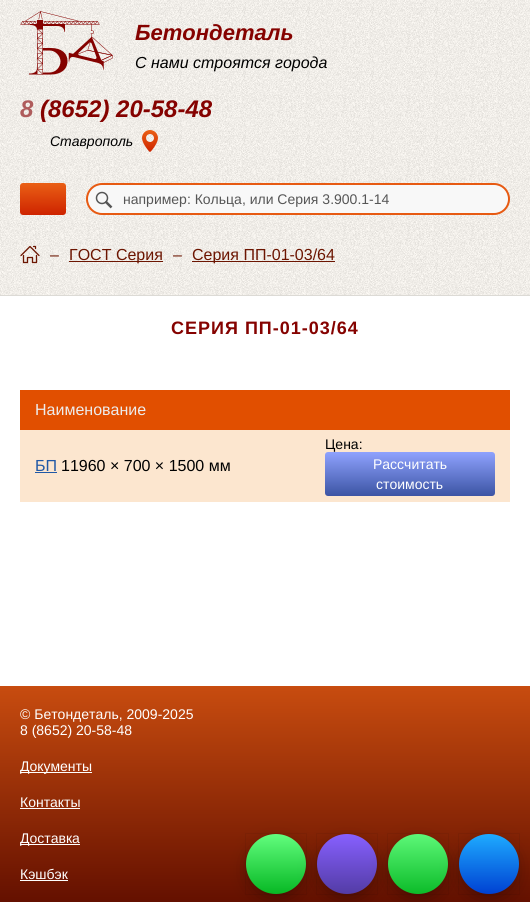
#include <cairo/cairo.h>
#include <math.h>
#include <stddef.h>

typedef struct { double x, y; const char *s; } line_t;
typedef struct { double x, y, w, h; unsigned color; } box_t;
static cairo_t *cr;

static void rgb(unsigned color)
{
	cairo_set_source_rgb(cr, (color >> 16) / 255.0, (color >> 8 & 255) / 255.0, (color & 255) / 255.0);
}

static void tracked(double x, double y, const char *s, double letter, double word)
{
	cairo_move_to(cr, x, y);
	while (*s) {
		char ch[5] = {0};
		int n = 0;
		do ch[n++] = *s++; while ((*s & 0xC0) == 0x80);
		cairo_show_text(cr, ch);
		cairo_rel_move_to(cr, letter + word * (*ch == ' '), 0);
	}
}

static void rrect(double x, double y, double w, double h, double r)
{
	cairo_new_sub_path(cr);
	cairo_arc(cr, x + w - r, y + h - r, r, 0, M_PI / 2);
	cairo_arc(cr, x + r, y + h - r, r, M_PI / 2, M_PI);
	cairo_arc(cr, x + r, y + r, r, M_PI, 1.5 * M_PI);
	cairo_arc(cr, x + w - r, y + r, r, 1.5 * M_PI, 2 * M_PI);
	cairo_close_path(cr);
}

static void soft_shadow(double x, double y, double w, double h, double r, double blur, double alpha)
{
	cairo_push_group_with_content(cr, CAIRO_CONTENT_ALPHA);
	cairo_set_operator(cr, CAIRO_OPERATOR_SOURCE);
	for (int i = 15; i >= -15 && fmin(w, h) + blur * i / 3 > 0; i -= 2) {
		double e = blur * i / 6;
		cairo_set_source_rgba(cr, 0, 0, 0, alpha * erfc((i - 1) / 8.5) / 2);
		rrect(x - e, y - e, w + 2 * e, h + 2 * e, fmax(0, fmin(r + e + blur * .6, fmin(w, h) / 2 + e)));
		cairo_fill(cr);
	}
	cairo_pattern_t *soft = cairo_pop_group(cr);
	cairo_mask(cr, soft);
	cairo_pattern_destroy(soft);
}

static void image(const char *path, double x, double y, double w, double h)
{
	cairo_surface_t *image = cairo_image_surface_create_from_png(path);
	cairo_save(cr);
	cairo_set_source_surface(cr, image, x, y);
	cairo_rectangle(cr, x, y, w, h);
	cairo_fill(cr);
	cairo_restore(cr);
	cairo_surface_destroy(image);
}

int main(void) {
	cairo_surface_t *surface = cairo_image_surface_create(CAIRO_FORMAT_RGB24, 530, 902);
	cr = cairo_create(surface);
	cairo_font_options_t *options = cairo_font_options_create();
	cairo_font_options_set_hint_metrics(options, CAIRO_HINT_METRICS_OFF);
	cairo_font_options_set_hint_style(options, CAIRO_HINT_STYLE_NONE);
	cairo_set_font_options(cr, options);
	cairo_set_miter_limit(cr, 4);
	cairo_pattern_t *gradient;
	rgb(0xffffff);
	cairo_paint(cr);
	image("img/1.png", 0, 0, 530, 295);
	image("img/2.png", 20, 11, 93, 64);
	image("img/3.png", 142, 130, 16, 22);
	gradient = cairo_pattern_create_linear(20, 183, 21, 247);
	cairo_pattern_add_color_stop_rgba(gradient, 0, 0.918, 0.376, 0.082, 1);
	cairo_pattern_add_color_stop_rgba(gradient, 0.5, 0.808, 0.141, 0, 1);
	cairo_set_source(cr, gradient);
	cairo_pattern_destroy(gradient);
	rrect(20, 183, 46, 32, 3);
	cairo_fill(cr);
	rgb(0xf8f8f8);
	rrect(87, 184, 422, 30, 15);
	cairo_fill_preserve(cr);
	rgb(0xe75a12);
	cairo_stroke(cr);
	cairo_arc(cr, 102, 198, 5.5, 0, 2 * M_PI);
	rgb(0x565656);
	cairo_set_line_width(cr, 1.5);
	cairo_stroke(cr);
	cairo_new_path(cr);
	cairo_move_to(cr, 111.5, 207.5);
	cairo_line_to(cr, 105.5, 201.5);
	cairo_set_line_width(cr, 2.5);
	cairo_set_line_join(cr, CAIRO_LINE_JOIN_ROUND);
	cairo_stroke(cr);
	image("img/4.png", 20, 245, 20, 19);
	{
		static const box_t items[] = {
			{69, 261, 94, 1, 0x6c1501},
			{192, 261, 143, 1, 0x6c1501},
			{0, 295, 530, 1, 0xdcdad5},
			{20, 390, 490, 40, 0xe14f00},
			{20, 430, 490, 72, 0xfce6cf},
			{35, 472, 22, 1, 0x2058a6},
		};
		for (size_t i = 0; i < sizeof items / sizeof *items; i++) {
			rgb(items[i].color);
			cairo_rectangle(cr, items[i].x, items[i].y, items[i].w, items[i].h);
			cairo_fill(cr);
		}
	}
	gradient = cairo_pattern_create_linear(326, 452, 326, 540);
	cairo_pattern_add_color_stop_rgba(gradient, 0, 0.561, 0.635, 0.996, 1);
	cairo_pattern_add_color_stop_rgba(gradient, 0.8, 0.039, 0.149, 0.431, 1);
	cairo_set_source(cr, gradient);
	cairo_pattern_destroy(gradient);
	rrect(325, 452, 170, 44, 3);
	cairo_fill(cr);
	gradient = cairo_pattern_create_linear(265, 686, 265, 902);
	cairo_pattern_add_color_stop_rgba(gradient, 0, 0.784, 0.298, 0.059, 1);
	cairo_pattern_add_color_stop_rgba(gradient, 1, 0.392, 0.063, 0, 1);
	cairo_set_source(cr, gradient);
	cairo_pattern_destroy(gradient);
	cairo_rectangle(cr, 0, 686, 530, 216);
	cairo_fill(cr);
	{
		static const box_t items[] = {
			{20, 772, 72, 1, 0xffffff},
			{20, 808, 60, 1, 0xffffff},
			{20, 844, 60, 1, 0xffffff},
			{20, 880, 48, 1, 0xffffff},
		};
		for (size_t i = 0; i < sizeof items / sizeof *items; i++) {
			rgb(items[i].color);
			cairo_rectangle(cr, items[i].x, items[i].y, items[i].w, items[i].h);
			cairo_fill(cr);
		}
	}
	cairo_rectangle(cr, 245.5, 833.5, 61, 61);
	cairo_set_source_rgba(cr, 0, 0, 0, 0.06);
	cairo_set_line_width(cr, 1);
	cairo_set_line_join(cr, CAIRO_LINE_JOIN_MITER);
	cairo_stroke(cr);
	rgb(0x000000);
	soft_shadow(251, 845, 50, 50, 25, 10, 0.4);
	gradient = cairo_pattern_create_linear(276, 834, 276, 894);
	cairo_pattern_add_color_stop_rgba(gradient, 0, 0.384, 0.992, 0.494, 1);
	cairo_pattern_add_color_stop_rgba(gradient, 1, 0.027, 0.722, 0.141, 1);
	cairo_set_source(cr, gradient);
	cairo_pattern_destroy(gradient);
	cairo_arc(cr, 276, 864, 30, 0, 2 * M_PI);
	cairo_fill(cr);
	cairo_rectangle(cr, 316.5, 833.5, 61, 61);
	cairo_set_source_rgba(cr, 0, 0, 0, 0.06);
	cairo_stroke(cr);
	rgb(0x000000);
	soft_shadow(322, 845, 50, 50, 25, 10, 0.4);
	gradient = cairo_pattern_create_linear(347, 834, 347, 894);
	cairo_pattern_add_color_stop_rgba(gradient, 0, 0.529, 0.376, 1, 1);
	cairo_pattern_add_color_stop_rgba(gradient, 1, 0.325, 0.235, 0.647, 1);
	cairo_set_source(cr, gradient);
	cairo_pattern_destroy(gradient);
	cairo_arc(cr, 347, 864, 30, 0, 2 * M_PI);
	cairo_fill(cr);
	cairo_rectangle(cr, 387.5, 833.5, 61, 61);
	cairo_set_source_rgba(cr, 0, 0, 0, 0.06);
	cairo_stroke(cr);
	rgb(0x000000);
	soft_shadow(393, 845, 50, 50, 25, 10, 0.4);
	gradient = cairo_pattern_create_linear(418, 834, 418, 894);
	cairo_pattern_add_color_stop_rgba(gradient, 0, 0.365, 0.969, 0.471, 1);
	cairo_pattern_add_color_stop_rgba(gradient, 1, 0.047, 0.737, 0.161, 1);
	cairo_set_source(cr, gradient);
	cairo_pattern_destroy(gradient);
	cairo_arc(cr, 418, 864, 30, 0, 2 * M_PI);
	cairo_fill(cr);
	cairo_rectangle(cr, 458.5, 833.5, 61, 61);
	cairo_set_source_rgba(cr, 0, 0, 0, 0.06);
	cairo_stroke(cr);
	rgb(0x000000);
	soft_shadow(464, 845, 50, 50, 25, 10, 0.4);
	gradient = cairo_pattern_create_linear(489, 834, 489, 894);
	cairo_pattern_add_color_stop_rgba(gradient, 0, 0.118, 0.671, 1, 1);
	cairo_pattern_add_color_stop_rgba(gradient, 1, 0, 0.255, 0.824, 1);
	cairo_set_source(cr, gradient);
	cairo_pattern_destroy(gradient);
	cairo_arc(cr, 489, 864, 30, 0, 2 * M_PI);
	cairo_fill(cr);
	cairo_select_font_face(cr, "Liberation Sans", CAIRO_FONT_SLANT_ITALIC, CAIRO_FONT_WEIGHT_BOLD);
	cairo_set_font_size(cr, 22);
	rgb(0x850200);
	cairo_move_to(cr, 135, 40);
	cairo_show_text(cr, "Бетондеталь");
	cairo_select_font_face(cr, "Liberation Sans", CAIRO_FONT_SLANT_ITALIC, CAIRO_FONT_WEIGHT_NORMAL);
	cairo_set_font_size(cr, 16);
	rgb(0x000000);
	cairo_move_to(cr, 135, 68);
	cairo_show_text(cr, "С нами строятся города");
	cairo_select_font_face(cr, "Liberation Sans", CAIRO_FONT_SLANT_ITALIC, CAIRO_FONT_WEIGHT_BOLD);
	cairo_set_font_size(cr, 24);
	rgb(0xaf5c5c);
	cairo_move_to(cr, 20, 117);
	cairo_show_text(cr, "8");
	rgb(0x850200);
	cairo_move_to(cr, 40, 117);
	cairo_show_text(cr, "(8652) 20-58-48");
	cairo_select_font_face(cr, "Liberation Sans", CAIRO_FONT_SLANT_ITALIC, CAIRO_FONT_WEIGHT_NORMAL);
	cairo_set_font_size(cr, 14);
	rgb(0x000000);
	cairo_move_to(cr, 50, 146);
	cairo_show_text(cr, "Ставрополь");
	cairo_select_font_face(cr, "Liberation Sans", CAIRO_FONT_SLANT_NORMAL, CAIRO_FONT_WEIGHT_NORMAL);
	rgb(0x565656);
	cairo_move_to(cr, 123, 204);
	cairo_show_text(cr, "например: Кольца, или Серия 3.900.1-14");
	cairo_set_font_size(cr, 16);
	rgb(0x6c1501);
	{
		static const line_t items[] = {
			{50, 260, "–"},
			{69, 260, "ГОСТ Серия"},
			{173, 260, "–"},
			{192, 260, "Серия ПП-01-03/64"},
		};
		for (size_t i = 0; i < sizeof items / sizeof *items; i++) {
			cairo_move_to(cr, items[i].x, items[i].y);
			cairo_show_text(cr, items[i].s);
		}
	}
	cairo_select_font_face(cr, "Liberation Sans", CAIRO_FONT_SLANT_NORMAL, CAIRO_FONT_WEIGHT_BOLD);
	cairo_set_font_size(cr, 18);
	rgb(0x850200);
	tracked(171, 334, "СЕРИЯ ПП-01-03/64", 1, 0);
	cairo_select_font_face(cr, "Liberation Sans", CAIRO_FONT_SLANT_NORMAL, CAIRO_FONT_WEIGHT_NORMAL);
	cairo_set_font_size(cr, 16);
	rgb(0xececec);
	cairo_move_to(cr, 35, 415);
	cairo_show_text(cr, "Наименование");
	rgb(0x2058a6);
	cairo_move_to(cr, 35, 471);
	cairo_show_text(cr, "БП");
	rgb(0x000000);
	cairo_move_to(cr, 61, 471);
	cairo_show_text(cr, "11960 × 700 × 1500 мм");
	cairo_set_font_size(cr, 14);
	cairo_move_to(cr, 325, 449);
	cairo_show_text(cr, "Цена:");
	rgb(0xffffff);
	{
		static const line_t items[] = {
			{373, 469, "Рассчитать"},
			{376, 489, "стоимость"},
			{20, 719, "© Бетондеталь, 2009-2025"},
			{20, 735, "8 (8652) 20-58-48"},
			{20, 771, "Документы"},
			{20, 807, "Контакты"},
			{20, 843, "Доставка"},
			{20, 879, "Кэшбэк"},
		};
		for (size_t i = 0; i < sizeof items / sizeof *items; i++) {
			cairo_move_to(cr, items[i].x, items[i].y);
			cairo_show_text(cr, items[i].s);
		}
	}
	cairo_surface_write_to_png(surface, "page.png");
	cairo_font_options_destroy(options);
	cairo_destroy(cr);
	cairo_surface_destroy(surface);
	return 0;
}
